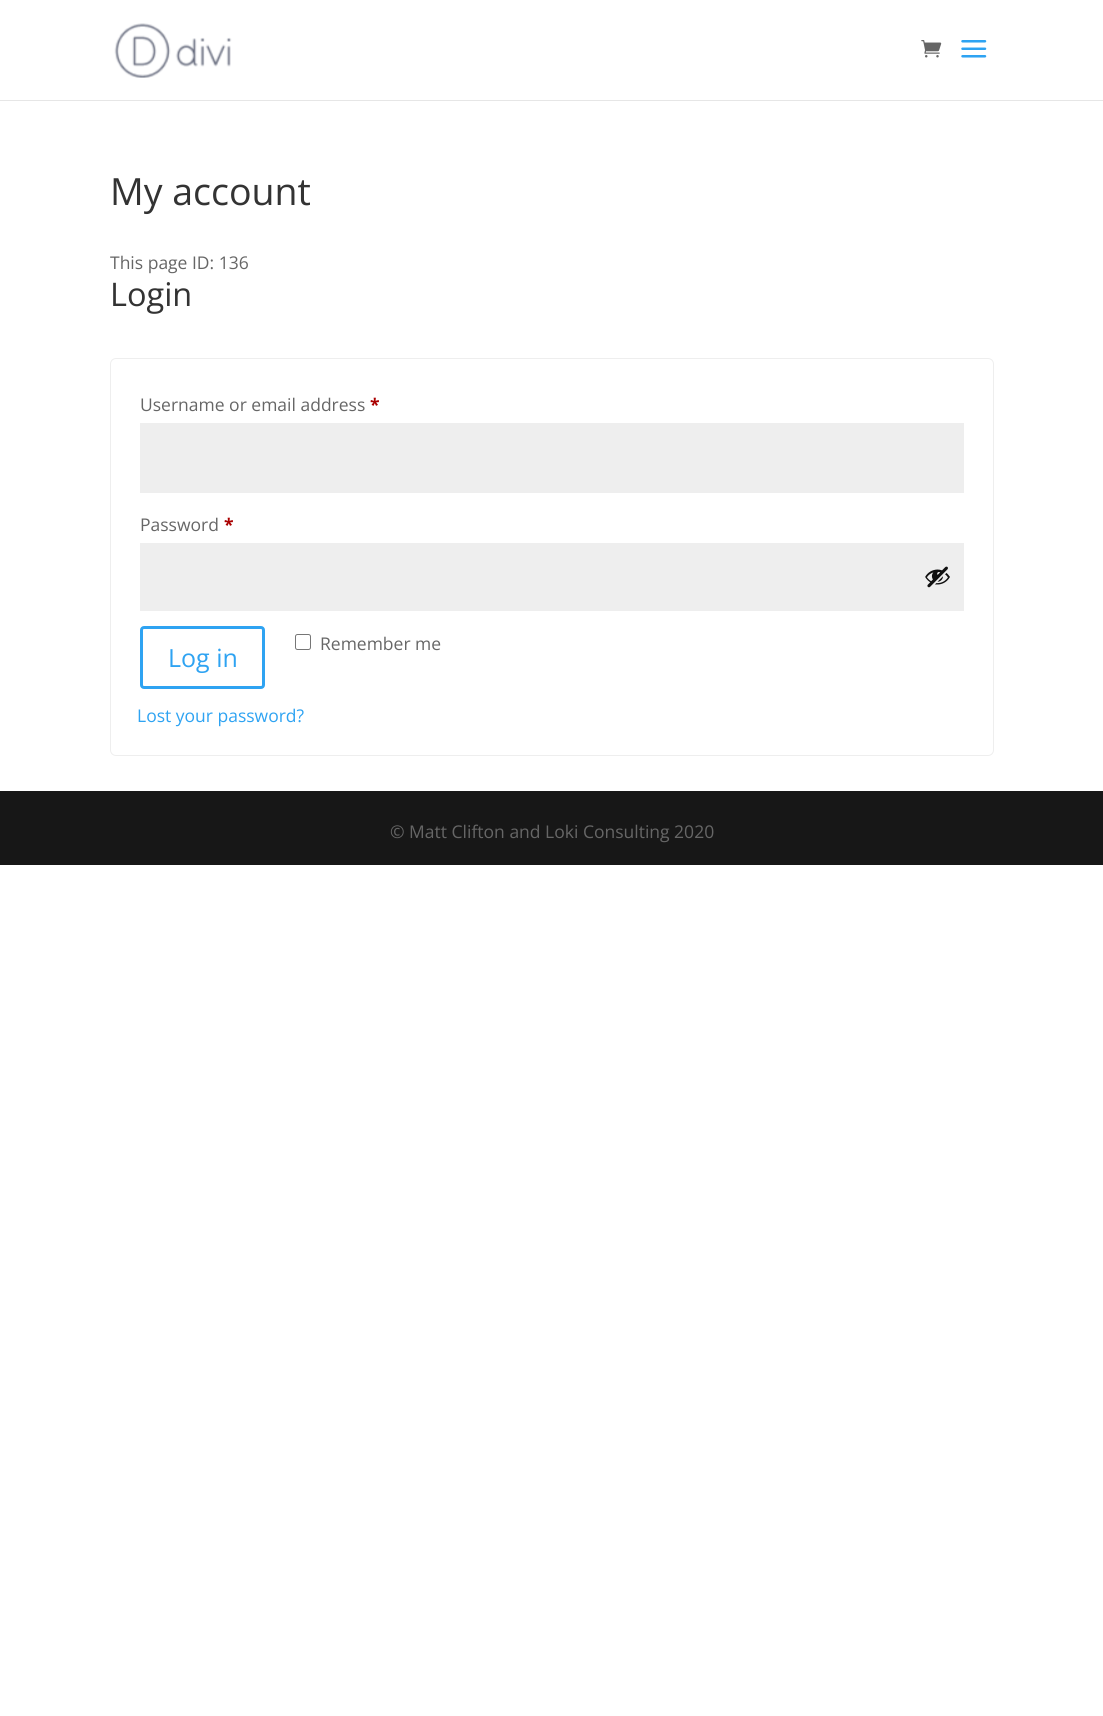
#include <cairo/cairo.h>
#include <math.h>
#include <stddef.h>

static cairo_t *cr;

static void rgb(unsigned color)
{
	cairo_set_source_rgb(cr, (color >> 16) / 255.0, (color >> 8 & 255) / 255.0, (color & 255) / 255.0);
}

static void rrect(double x, double y, double w, double h, double r)
{
	cairo_new_sub_path(cr);
	cairo_arc(cr, x + w - r, y + h - r, r, 0, M_PI / 2);
	cairo_arc(cr, x + r, y + h - r, r, M_PI / 2, M_PI);
	cairo_arc(cr, x + r, y + r, r, M_PI, 1.5 * M_PI);
	cairo_arc(cr, x + w - r, y + r, r, 1.5 * M_PI, 2 * M_PI);
	cairo_close_path(cr);
}

static void image(const char *path, double x, double y, double w, double h)
{
	cairo_surface_t *image = cairo_image_surface_create_from_png(path);
	cairo_save(cr);
	cairo_set_source_surface(cr, image, x, y);
	cairo_rectangle(cr, x, y, w, h);
	cairo_fill(cr);
	cairo_restore(cr);
	cairo_surface_destroy(image);
}

int main(void) {
	cairo_surface_t *surface = cairo_image_surface_create(CAIRO_FORMAT_RGB24, 1103, 1716);
	cr = cairo_create(surface);
	cairo_font_options_t *options = cairo_font_options_create();
	cairo_font_options_set_hint_metrics(options, CAIRO_HINT_METRICS_OFF);
	cairo_font_options_set_hint_style(options, CAIRO_HINT_STYLE_NONE);
	cairo_set_font_options(cr, options);
	cairo_set_miter_limit(cr, 4);
	rgb(0xffffff);
	cairo_paint(cr);
	rgb(0xe6e6e6);
	cairo_new_path(cr);
	cairo_move_to(cr, 0, 100);
	cairo_line_to(cr, 0, 101);
	cairo_line_to(cr, 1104, 101);
	cairo_line_to(cr, 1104, 1);
	cairo_line_to(cr, 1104, 100);
	cairo_close_path(cr);
	cairo_fill(cr);
	image("img/1.png", 114, 23, 118, 55);
	image("img/2.png", 921, 40, 21, 18);
	image("img/3.png", 961, 40, 26, 18);
	rrect(110.5, 358.5, 883, 397, 5.5);
	rgb(0xeeeeee);
	cairo_set_line_width(cr, 1);
	cairo_stroke(cr);
	cairo_rectangle(cr, 140, 423, 824, 70);
	cairo_fill(cr);
	cairo_rectangle(cr, 140, 543, 824, 68);
	cairo_fill(cr);
	image("img/4.png", 925, 566, 25, 22);
	rrect(295.5, 634.5, 15, 15, 2);
	rgb(0x767676);
	cairo_stroke(cr);
	rrect(141.5, 627.5, 122, 60, 2.5);
	rgb(0x2ea3f2);
	cairo_set_line_width(cr, 3);
	cairo_stroke(cr);
	rgb(0x171717);
	cairo_rectangle(cr, 0, 791, 1103, 74);
	cairo_fill(cr);
	cairo_select_font_face(cr, "Open Sans", CAIRO_FONT_SLANT_NORMAL, CAIRO_FONT_WEIGHT_NORMAL);
	cairo_set_font_size(cr, 37.5);
	rgb(0x333333);
	cairo_move_to(cr, 110, 205);
	cairo_show_text(cr, "My account");
	cairo_set_font_size(cr, 17.5);
	rgb(0x666666);
	cairo_move_to(cr, 110, 269);
	cairo_show_text(cr, "This page ID: 136");
	cairo_set_font_size(cr, 32.5);
	rgb(0x333333);
	cairo_move_to(cr, 110, 306);
	cairo_show_text(cr, "Login");
	cairo_set_font_size(cr, 17.5);
	rgb(0x666666);
	cairo_move_to(cr, 140, 411);
	cairo_show_text(cr, "Username or email address");
	cairo_select_font_face(cr, "Open Sans", CAIRO_FONT_SLANT_NORMAL, CAIRO_FONT_WEIGHT_BOLD);
	rgb(0xaa0000);
	cairo_move_to(cr, 370, 411);
	cairo_show_text(cr, "*");
	cairo_select_font_face(cr, "Open Sans", CAIRO_FONT_SLANT_NORMAL, CAIRO_FONT_WEIGHT_NORMAL);
	rgb(0x666666);
	cairo_move_to(cr, 140, 531);
	cairo_show_text(cr, "Password");
	cairo_select_font_face(cr, "Open Sans", CAIRO_FONT_SLANT_NORMAL, CAIRO_FONT_WEIGHT_BOLD);
	rgb(0xaa0000);
	cairo_move_to(cr, 224, 531);
	cairo_show_text(cr, "*");
	cairo_select_font_face(cr, "Open Sans", CAIRO_FONT_SLANT_NORMAL, CAIRO_FONT_WEIGHT_NORMAL);
	rgb(0x666666);
	cairo_move_to(cr, 320, 650);
	cairo_show_text(cr, "Remember me");
	cairo_set_font_size(cr, 25);
	rgb(0x2ea3f2);
	cairo_move_to(cr, 168, 667);
	cairo_show_text(cr, "Log in");
	cairo_set_font_size(cr, 17.5);
	cairo_move_to(cr, 137, 722);
	cairo_show_text(cr, "Lost your password?");
	rgb(0x666666);
	cairo_move_to(cr, 390, 838);
	cairo_show_text(cr, "© Matt Clifton and Loki Consulting 2020");
	cairo_surface_write_to_png(surface, "page.png");
	cairo_font_options_destroy(options);
	cairo_destroy(cr);
	cairo_surface_destroy(surface);
	return 0;
}
